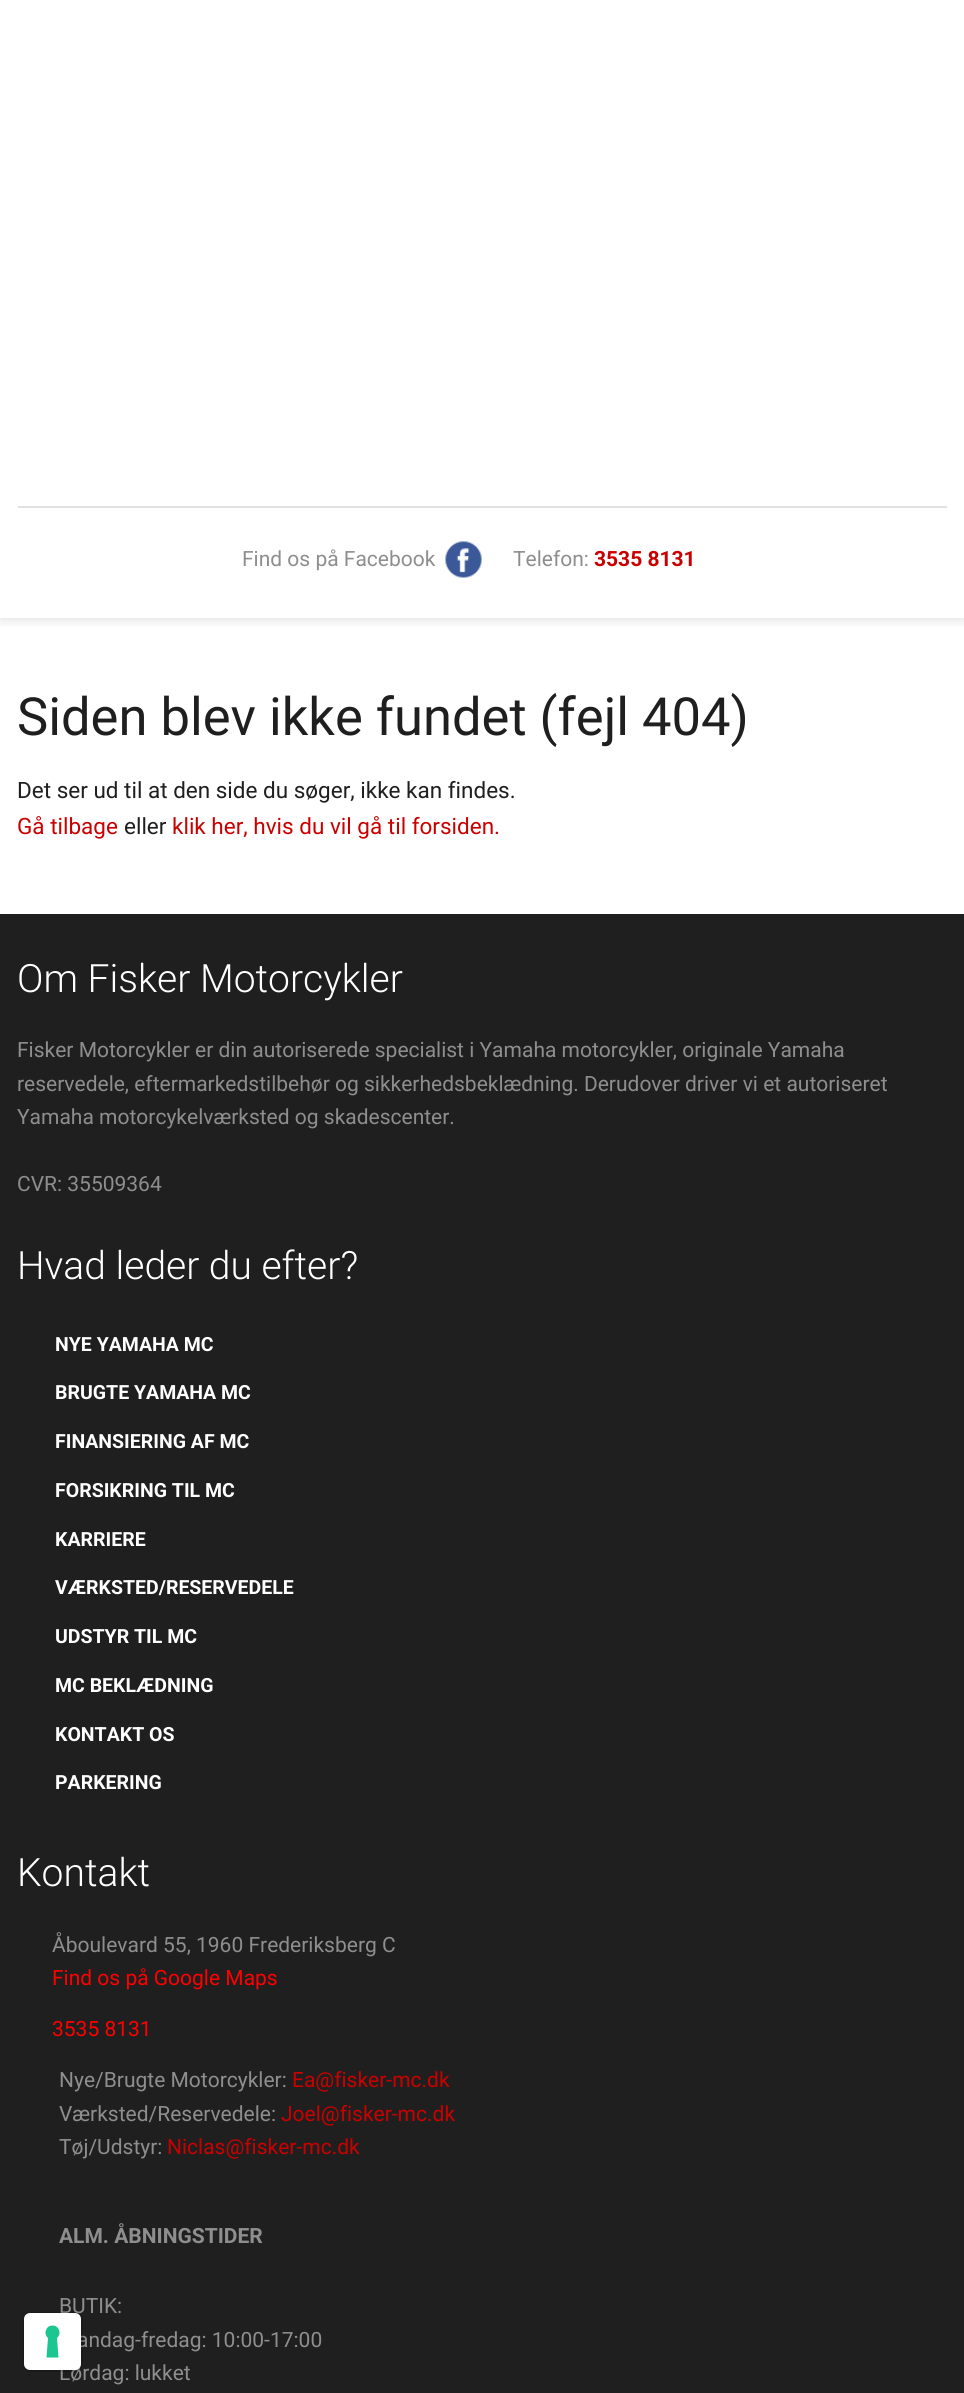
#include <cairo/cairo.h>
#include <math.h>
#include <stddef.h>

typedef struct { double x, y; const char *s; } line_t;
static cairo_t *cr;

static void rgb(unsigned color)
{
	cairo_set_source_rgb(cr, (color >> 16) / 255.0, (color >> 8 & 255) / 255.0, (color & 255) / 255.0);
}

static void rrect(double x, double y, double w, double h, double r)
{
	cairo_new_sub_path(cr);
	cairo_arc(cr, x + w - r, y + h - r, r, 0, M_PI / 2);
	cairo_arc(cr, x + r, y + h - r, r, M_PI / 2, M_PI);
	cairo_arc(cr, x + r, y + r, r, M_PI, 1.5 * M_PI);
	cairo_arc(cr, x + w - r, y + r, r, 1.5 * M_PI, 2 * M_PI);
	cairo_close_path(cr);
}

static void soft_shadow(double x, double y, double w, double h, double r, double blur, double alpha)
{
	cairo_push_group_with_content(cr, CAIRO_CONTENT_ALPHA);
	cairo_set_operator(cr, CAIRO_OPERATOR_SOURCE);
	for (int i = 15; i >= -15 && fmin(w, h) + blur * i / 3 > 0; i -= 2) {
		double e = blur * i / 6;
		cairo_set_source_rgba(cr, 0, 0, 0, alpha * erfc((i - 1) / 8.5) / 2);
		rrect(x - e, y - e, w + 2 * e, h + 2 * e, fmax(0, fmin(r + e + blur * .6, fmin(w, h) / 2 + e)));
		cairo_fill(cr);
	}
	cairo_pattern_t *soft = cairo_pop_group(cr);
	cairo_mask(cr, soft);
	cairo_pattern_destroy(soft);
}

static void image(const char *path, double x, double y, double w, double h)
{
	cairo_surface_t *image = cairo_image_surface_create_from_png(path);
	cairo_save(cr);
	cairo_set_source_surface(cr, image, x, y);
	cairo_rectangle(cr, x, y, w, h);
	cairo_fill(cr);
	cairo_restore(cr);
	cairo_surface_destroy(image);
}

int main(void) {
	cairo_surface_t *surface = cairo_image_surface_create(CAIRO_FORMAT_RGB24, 964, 2393);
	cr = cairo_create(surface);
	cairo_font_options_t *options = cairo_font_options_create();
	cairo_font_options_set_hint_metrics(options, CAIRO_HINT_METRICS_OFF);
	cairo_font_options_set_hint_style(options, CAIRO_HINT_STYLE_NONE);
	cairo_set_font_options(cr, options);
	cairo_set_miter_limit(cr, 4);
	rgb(0xffffff);
	cairo_paint(cr);
	cairo_save(cr);
	cairo_rectangle(cr, 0, 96, 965, 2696);
	cairo_clip(cr);
	cairo_rectangle(cr, 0, 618, 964, 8);
	cairo_clip(cr);
	rgb(0x000000);
	soft_shadow(0, 96, 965, 522, 0, 7.5, 0.15);
	cairo_restore(cr);
	rgb(0xe1e1e1);
	cairo_rectangle(cr, 18, 506, 929, 2);
	cairo_fill(cr);
	image("img/1.png", 445, 541, 37, 37);
	rgb(0x1f1f1f);
	cairo_rectangle(cr, 0, 914, 964, 1479);
	cairo_fill(cr);
	cairo_select_font_face(cr, "Roboto", CAIRO_FONT_SLANT_NORMAL, CAIRO_FONT_WEIGHT_NORMAL);
	cairo_set_font_size(cr, 21);
	rgb(0x8e8e8e);
	cairo_move_to(cr, 242, 566);
	cairo_show_text(cr, "Find os på Facebook");
	cairo_move_to(cr, 513, 566);
	cairo_show_text(cr, "Telefon:");
	cairo_select_font_face(cr, "Roboto", CAIRO_FONT_SLANT_NORMAL, CAIRO_FONT_WEIGHT_BOLD);
	rgb(0xca0000);
	cairo_move_to(cr, 594, 566);
	cairo_show_text(cr, "3535 8131");
	cairo_select_font_face(cr, "Roboto", CAIRO_FONT_SLANT_NORMAL, CAIRO_FONT_WEIGHT_NORMAL);
	cairo_set_font_size(cr, 52.5);
	rgb(0x1f1f1f);
	cairo_move_to(cr, 17, 735);
	cairo_show_text(cr, "Siden blev ikke fundet (fejl 404)");
	cairo_set_font_size(cr, 22.5);
	cairo_move_to(cr, 17, 798);
	cairo_show_text(cr, "Det ser ud til at den side du søger, ikke kan findes.");
	rgb(0xca0000);
	cairo_move_to(cr, 17, 834);
	cairo_show_text(cr, "Gå tilbage");
	rgb(0x1f1f1f);
	cairo_move_to(cr, 124, 834);
	cairo_show_text(cr, "eller");
	rgb(0xca0000);
	cairo_move_to(cr, 172, 834);
	cairo_show_text(cr, "klik her, hvis du vil gå til forsiden.");
	cairo_select_font_face(cr, "Roboto Light", CAIRO_FONT_SLANT_NORMAL, CAIRO_FONT_WEIGHT_NORMAL);
	cairo_set_font_size(cr, 39);
	rgb(0xffffff);
	cairo_move_to(cr, 17, 992);
	cairo_show_text(cr, "Om Fisker Motorcykler");
	cairo_select_font_face(cr, "Roboto", CAIRO_FONT_SLANT_NORMAL, CAIRO_FONT_WEIGHT_NORMAL);
	cairo_set_font_size(cr, 21);
	rgb(0x8e8e8e);
	{
		static const line_t items[] = {
			{17, 1057, "Fisker Motorcykler er din autoriserede specialist i Yamaha motorcykler, originale Yamaha"},
			{17, 1091, "reservedele, eftermarkedstilbehør og sikkerhedsbeklædning. Derudover driver vi et autoriseret"},
			{17, 1124, "Yamaha motorcykelværksted og skadescenter."},
			{17, 1191, "CVR: 35509364"},
		};
		for (size_t i = 0; i < sizeof items / sizeof *items; i++) {
			cairo_move_to(cr, items[i].x, items[i].y);
			cairo_show_text(cr, items[i].s);
		}
	}
	cairo_select_font_face(cr, "Roboto Light", CAIRO_FONT_SLANT_NORMAL, CAIRO_FONT_WEIGHT_NORMAL);
	cairo_set_font_size(cr, 39);
	rgb(0xffffff);
	cairo_move_to(cr, 17, 1279);
	cairo_show_text(cr, "Hvad leder du efter?");
	cairo_select_font_face(cr, "Roboto", CAIRO_FONT_SLANT_NORMAL, CAIRO_FONT_WEIGHT_BOLD);
	cairo_set_font_size(cr, 19.5);
	{
		static const line_t items[] = {
			{55, 1351, "NYE YAMAHA MC"},
			{55, 1399, "BRUGTE YAMAHA MC"},
			{55, 1448, "FINANSIERING AF MC"},
			{55, 1497, "FORSIKRING TIL MC"},
			{55, 1546, "KARRIERE"},
			{55, 1594, "VÆRKSTED/RESERVEDELE"},
			{55, 1643, "UDSTYR TIL MC"},
			{55, 1692, "MC BEKLÆDNING"},
			{55, 1741, "KONTAKT OS"},
			{55, 1789, "PARKERING"},
		};
		for (size_t i = 0; i < sizeof items / sizeof *items; i++) {
			cairo_move_to(cr, items[i].x, items[i].y);
			cairo_show_text(cr, items[i].s);
		}
	}
	cairo_select_font_face(cr, "Roboto Light", CAIRO_FONT_SLANT_NORMAL, CAIRO_FONT_WEIGHT_NORMAL);
	cairo_set_font_size(cr, 39);
	cairo_move_to(cr, 17, 1886);
	cairo_show_text(cr, "Kontakt");
	cairo_select_font_face(cr, "Roboto", CAIRO_FONT_SLANT_NORMAL, CAIRO_FONT_WEIGHT_NORMAL);
	cairo_set_font_size(cr, 21);
	rgb(0x8e8e8e);
	cairo_move_to(cr, 52, 1952);
	cairo_show_text(cr, "Åboulevard 55, 1960 Frederiksberg C");
	rgb(0xff0000);
	cairo_move_to(cr, 52, 1985);
	cairo_show_text(cr, "Find os på Google Maps");
	cairo_move_to(cr, 52, 2036);
	cairo_show_text(cr, "3535 8131");
	rgb(0x8e8e8e);
	cairo_move_to(cr, 59, 2087);
	cairo_show_text(cr, "Nye/Brugte Motorcykler:");
	rgb(0xca0000);
	cairo_move_to(cr, 292, 2087);
	cairo_show_text(cr, "Ea@fisker-mc.dk");
	rgb(0x8e8e8e);
	cairo_move_to(cr, 59, 2121);
	cairo_show_text(cr, "Værksted/Reservedele:");
	rgb(0xca0000);
	cairo_move_to(cr, 281, 2121);
	cairo_show_text(cr, "Joel@fisker-mc.dk");
	rgb(0x8e8e8e);
	cairo_move_to(cr, 59, 2154);
	cairo_show_text(cr, "Tøj/Udstyr:");
	rgb(0xca0000);
	cairo_move_to(cr, 167, 2154);
	cairo_show_text(cr, "Niclas@fisker-mc.dk");
	cairo_select_font_face(cr, "Roboto", CAIRO_FONT_SLANT_NORMAL, CAIRO_FONT_WEIGHT_BOLD);
	rgb(0x8e8e8e);
	cairo_move_to(cr, 59, 2243);
	cairo_show_text(cr, "ALM. ÅBNINGSTIDER");
	cairo_select_font_face(cr, "Roboto", CAIRO_FONT_SLANT_NORMAL, CAIRO_FONT_WEIGHT_NORMAL);
	{
		static const line_t items[] = {
			{59, 2313, "BUTIK:"},
			{77, 2347, "andag-fredag: 10:00-17:00"},
			{59, 2380, "Lørdag: lukket"},
		};
		for (size_t i = 0; i < sizeof items / sizeof *items; i++) {
			cairo_move_to(cr, items[i].x, items[i].y);
			cairo_show_text(cr, items[i].s);
		}
	}
	rrect(24, 2313, 58, 58, 7);
	cairo_set_source_rgba(cr, 0, 0, 0, 0.15);
	cairo_stroke(cr);
	rgb(0xffffff);
	rrect(24, 2313, 57, 57, 6);
	cairo_fill(cr);
	rgb(0x1cc691);
	cairo_set_fill_rule(cr, CAIRO_FILL_RULE_EVEN_ODD);
	cairo_new_path(cr);
	cairo_move_to(cr, 52.5, 2325.5);
	cairo_curve_to(cr, 59, 2325.5, 62, 2333.5, 57, 2338);
	cairo_line_to(cr, 58.5, 2357.5);
	cairo_line_to(cr, 46.5, 2357.5);
	cairo_line_to(cr, 48, 2338);
	cairo_curve_to(cr, 43, 2333.5, 46, 2325.5, 52.5, 2325.5);
	cairo_close_path(cr);
	cairo_fill(cr);
	cairo_surface_write_to_png(surface, "page.png");
	cairo_font_options_destroy(options);
	cairo_destroy(cr);
	cairo_surface_destroy(surface);
	return 0;
}
